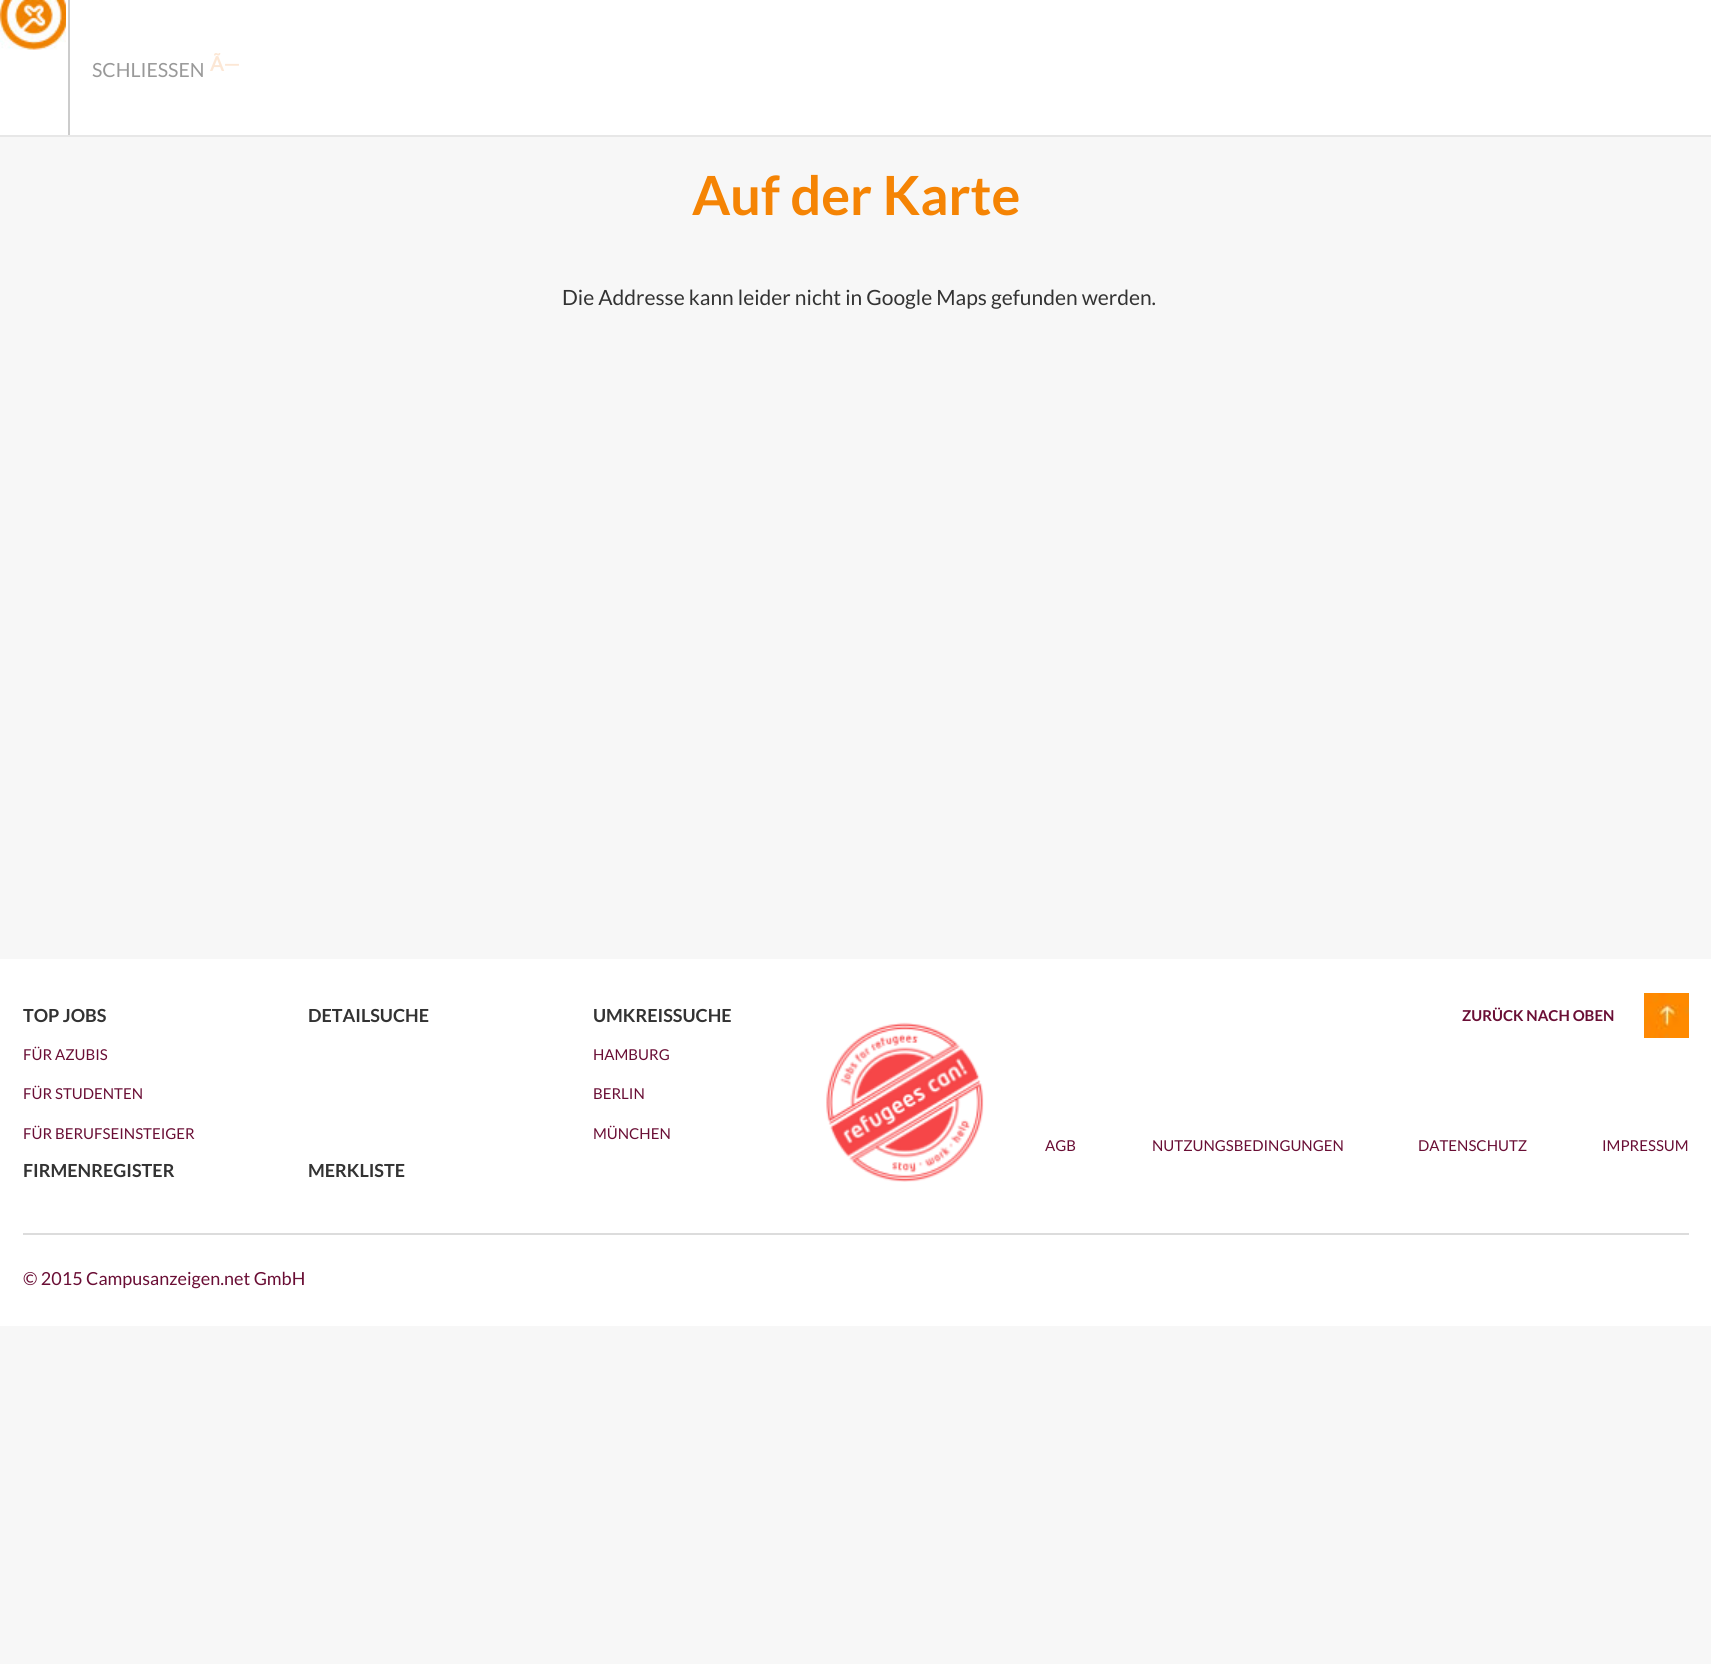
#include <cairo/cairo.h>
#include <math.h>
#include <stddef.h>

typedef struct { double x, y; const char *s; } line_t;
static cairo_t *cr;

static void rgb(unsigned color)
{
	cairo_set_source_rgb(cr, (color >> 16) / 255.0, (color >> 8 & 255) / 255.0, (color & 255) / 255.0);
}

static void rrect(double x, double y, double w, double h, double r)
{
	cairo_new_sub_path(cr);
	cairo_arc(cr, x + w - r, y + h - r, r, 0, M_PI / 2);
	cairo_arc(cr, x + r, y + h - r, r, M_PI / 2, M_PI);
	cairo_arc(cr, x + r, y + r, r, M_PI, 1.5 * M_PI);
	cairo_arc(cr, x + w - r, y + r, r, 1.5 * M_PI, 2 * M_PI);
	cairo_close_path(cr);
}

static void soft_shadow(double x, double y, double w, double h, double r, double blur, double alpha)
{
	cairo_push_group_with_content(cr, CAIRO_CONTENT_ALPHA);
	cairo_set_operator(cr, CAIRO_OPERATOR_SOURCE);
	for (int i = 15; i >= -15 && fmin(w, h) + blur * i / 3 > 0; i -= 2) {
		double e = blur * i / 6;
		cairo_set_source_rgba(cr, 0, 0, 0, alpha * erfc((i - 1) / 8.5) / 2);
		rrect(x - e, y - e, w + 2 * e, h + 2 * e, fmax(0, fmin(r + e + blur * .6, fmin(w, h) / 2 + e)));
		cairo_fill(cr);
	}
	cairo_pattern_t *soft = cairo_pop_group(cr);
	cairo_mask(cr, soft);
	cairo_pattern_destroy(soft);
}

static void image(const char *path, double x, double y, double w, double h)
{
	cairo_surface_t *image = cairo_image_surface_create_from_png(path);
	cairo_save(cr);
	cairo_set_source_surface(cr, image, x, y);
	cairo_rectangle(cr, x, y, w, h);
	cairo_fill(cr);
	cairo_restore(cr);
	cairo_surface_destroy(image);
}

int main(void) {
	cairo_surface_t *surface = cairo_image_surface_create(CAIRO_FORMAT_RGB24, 1711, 1664);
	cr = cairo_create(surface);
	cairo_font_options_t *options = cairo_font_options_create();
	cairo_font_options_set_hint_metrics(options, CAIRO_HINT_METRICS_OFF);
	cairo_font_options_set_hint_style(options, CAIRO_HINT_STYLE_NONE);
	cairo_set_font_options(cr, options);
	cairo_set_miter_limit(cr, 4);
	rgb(0xf7f7f7);
	cairo_paint(cr);
	cairo_save(cr);
	cairo_set_fill_rule(cr, CAIRO_FILL_RULE_EVEN_ODD);
	cairo_new_path(cr);
	cairo_move_to(cr, 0, 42);
	cairo_line_to(cr, 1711, 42);
	cairo_line_to(cr, 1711, 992);
	cairo_line_to(cr, 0, 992);
	cairo_close_path(cr);
	cairo_move_to(cr, 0, 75);
	cairo_line_to(cr, 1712, 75);
	cairo_line_to(cr, 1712, 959);
	cairo_line_to(cr, 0, 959);
	cairo_close_path(cr);
	cairo_clip(cr);
	rgb(0x000000);
	soft_shadow(0, 75, 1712, 884, 0, 10.5, 0.7);
	cairo_restore(cr);
	rgb(0xffffff);
	cairo_rectangle(cr, 0, 0, 1711, 135);
	cairo_fill(cr);
	rgb(0xe7e7e7);
	cairo_rectangle(cr, 0, 135, 1711, 2);
	cairo_fill(cr);
	image("img/1.png", 0, 0, 66, 50);
	rgb(0xcccccc);
	cairo_rectangle(cr, 68, 0, 2, 135);
	cairo_fill(cr);
	rgb(0xffffff);
	cairo_rectangle(cr, 0, 959, 1711, 367);
	cairo_fill(cr);
	image("img/2.png", 826, 1022, 158, 160);
	image("img/3.png", 1644, 993, 45, 45);
	rgb(0xdcdcdc);
	cairo_rectangle(cr, 23, 1233, 1666, 2);
	cairo_fill(cr);
	cairo_select_font_face(cr, "Lato", CAIRO_FONT_SLANT_NORMAL, CAIRO_FONT_WEIGHT_NORMAL);
	cairo_set_font_size(cr, 19.5);
	rgb(0x999999);
	cairo_move_to(cr, 92, 77);
	cairo_show_text(cr, "SCHLIESSEN");
	cairo_select_font_face(cr, "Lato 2", CAIRO_FONT_SLANT_NORMAL, CAIRO_FONT_WEIGHT_BOLD);
	cairo_set_font_size(cr, 20);
	rgb(0xfce7d5);
	cairo_move_to(cr, 210, 71);
	cairo_show_text(cr, "Ã—");
	cairo_select_font_face(cr, "Lato", CAIRO_FONT_SLANT_NORMAL, CAIRO_FONT_WEIGHT_BOLD);
	cairo_set_font_size(cr, 54);
	rgb(0xf58404);
	cairo_move_to(cr, 692, 215);
	cairo_show_text(cr, "Auf der Karte");
	cairo_select_font_face(cr, "Lato", CAIRO_FONT_SLANT_NORMAL, CAIRO_FONT_WEIGHT_NORMAL);
	cairo_set_font_size(cr, 21);
	rgb(0x333333);
	cairo_move_to(cr, 562, 305);
	cairo_show_text(cr, "Die Addresse kann leider nicht in Google Maps gefunden werden.");
	cairo_select_font_face(cr, "Lato", CAIRO_FONT_SLANT_NORMAL, CAIRO_FONT_WEIGHT_BOLD);
	cairo_set_font_size(cr, 18);
	cairo_move_to(cr, 23, 1022);
	cairo_show_text(cr, "TOP JOBS");
	cairo_select_font_face(cr, "Lato", CAIRO_FONT_SLANT_NORMAL, CAIRO_FONT_WEIGHT_NORMAL);
	cairo_set_font_size(cr, 15);
	rgb(0x6a0e35);
	{
		static const line_t items[] = {
			{23, 1060, "FÜR AZUBIS"},
			{23, 1099, "FÜR STUDENTEN"},
			{23, 1139, "FÜR BERUFSEINSTEIGER"},
		};
		for (size_t i = 0; i < sizeof items / sizeof *items; i++) {
			cairo_move_to(cr, items[i].x, items[i].y);
			cairo_show_text(cr, items[i].s);
		}
	}
	cairo_select_font_face(cr, "Lato", CAIRO_FONT_SLANT_NORMAL, CAIRO_FONT_WEIGHT_BOLD);
	cairo_set_font_size(cr, 18);
	rgb(0x333333);
	cairo_move_to(cr, 308, 1022);
	cairo_show_text(cr, "DETAILSUCHE");
	cairo_move_to(cr, 593, 1022);
	cairo_show_text(cr, "UMKREISSUCHE");
	cairo_select_font_face(cr, "Lato", CAIRO_FONT_SLANT_NORMAL, CAIRO_FONT_WEIGHT_NORMAL);
	cairo_set_font_size(cr, 15);
	rgb(0x6a0e35);
	{
		static const line_t items[] = {
			{593, 1060, "HAMBURG"},
			{593, 1099, "BERLIN"},
			{593, 1139, "MÜNCHEN"},
		};
		for (size_t i = 0; i < sizeof items / sizeof *items; i++) {
			cairo_move_to(cr, items[i].x, items[i].y);
			cairo_show_text(cr, items[i].s);
		}
	}
	cairo_select_font_face(cr, "Lato", CAIRO_FONT_SLANT_NORMAL, CAIRO_FONT_WEIGHT_BOLD);
	cairo_set_font_size(cr, 18);
	rgb(0x333333);
	cairo_move_to(cr, 23, 1177);
	cairo_show_text(cr, "FIRMENREGISTER");
	cairo_move_to(cr, 308, 1177);
	cairo_show_text(cr, "MERKLISTE");
	cairo_set_font_size(cr, 15);
	rgb(0x6a0e35);
	cairo_move_to(cr, 1462, 1021);
	cairo_show_text(cr, "ZURÜCK NACH OBEN");
	cairo_select_font_face(cr, "Lato", CAIRO_FONT_SLANT_NORMAL, CAIRO_FONT_WEIGHT_NORMAL);
	{
		static const line_t items[] = {
			{1045, 1151, "AGB"},
			{1152, 1151, "NUTZUNGSBEDINGUNGEN"},
			{1418, 1151, "DATENSCHUTZ"},
			{1602, 1151, "IMPRESSUM"},
		};
		for (size_t i = 0; i < sizeof items / sizeof *items; i++) {
			cairo_move_to(cr, items[i].x, items[i].y);
			cairo_show_text(cr, items[i].s);
		}
	}
	cairo_set_font_size(cr, 18);
	cairo_move_to(cr, 23, 1285);
	cairo_show_text(cr, "© 2015 Campusanzeigen.net GmbH");
	cairo_surface_write_to_png(surface, "page.png");
	cairo_font_options_destroy(options);
	cairo_destroy(cr);
	cairo_surface_destroy(surface);
	return 0;
}
